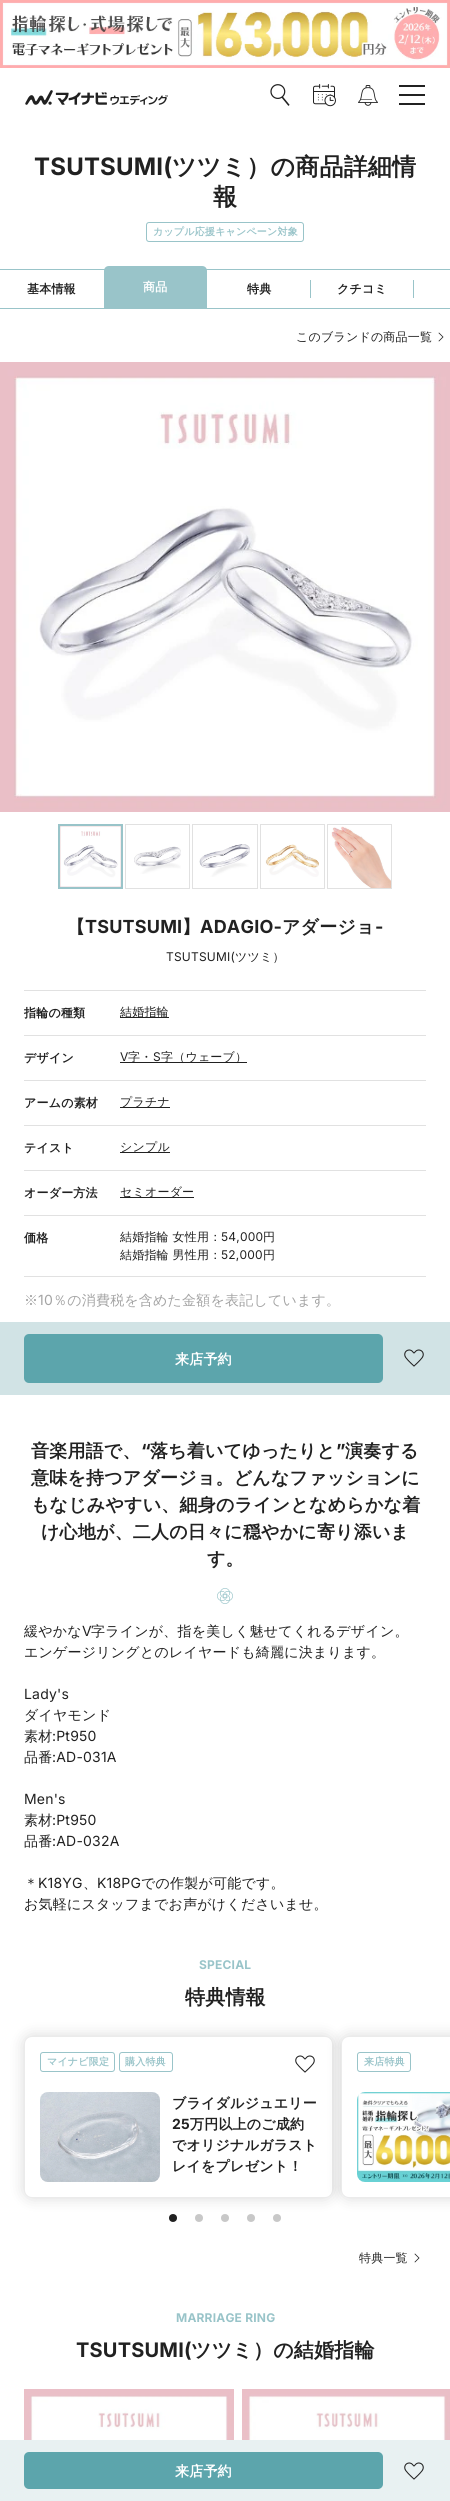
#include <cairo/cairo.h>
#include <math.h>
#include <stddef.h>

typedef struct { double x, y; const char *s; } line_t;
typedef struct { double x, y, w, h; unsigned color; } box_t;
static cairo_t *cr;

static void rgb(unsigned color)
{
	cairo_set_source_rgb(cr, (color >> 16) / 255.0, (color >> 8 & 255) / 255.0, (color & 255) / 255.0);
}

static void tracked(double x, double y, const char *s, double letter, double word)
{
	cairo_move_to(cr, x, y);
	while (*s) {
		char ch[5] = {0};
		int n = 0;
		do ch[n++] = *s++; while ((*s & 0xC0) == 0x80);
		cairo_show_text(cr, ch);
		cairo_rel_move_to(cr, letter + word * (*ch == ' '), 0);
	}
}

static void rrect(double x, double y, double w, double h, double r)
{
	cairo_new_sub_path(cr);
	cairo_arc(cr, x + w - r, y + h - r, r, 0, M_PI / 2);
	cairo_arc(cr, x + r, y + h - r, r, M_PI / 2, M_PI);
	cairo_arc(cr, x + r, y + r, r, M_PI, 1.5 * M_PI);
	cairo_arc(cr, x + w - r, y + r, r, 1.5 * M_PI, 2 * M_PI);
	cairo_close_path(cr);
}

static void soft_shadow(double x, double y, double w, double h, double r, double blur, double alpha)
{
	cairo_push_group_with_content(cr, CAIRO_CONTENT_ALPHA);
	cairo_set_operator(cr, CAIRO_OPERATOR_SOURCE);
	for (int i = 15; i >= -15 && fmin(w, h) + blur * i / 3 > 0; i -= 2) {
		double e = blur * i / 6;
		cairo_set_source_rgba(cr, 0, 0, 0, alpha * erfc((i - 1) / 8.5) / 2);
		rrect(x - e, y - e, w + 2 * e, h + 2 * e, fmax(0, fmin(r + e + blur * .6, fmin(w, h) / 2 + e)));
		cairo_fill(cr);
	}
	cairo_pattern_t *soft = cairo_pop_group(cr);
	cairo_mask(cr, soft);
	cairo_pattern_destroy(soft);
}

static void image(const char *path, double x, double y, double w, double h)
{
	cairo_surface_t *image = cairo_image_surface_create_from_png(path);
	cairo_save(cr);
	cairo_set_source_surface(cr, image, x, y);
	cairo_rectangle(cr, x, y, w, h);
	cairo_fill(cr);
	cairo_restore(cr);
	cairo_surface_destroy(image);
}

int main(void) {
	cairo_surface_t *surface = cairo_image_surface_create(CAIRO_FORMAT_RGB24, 450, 2501);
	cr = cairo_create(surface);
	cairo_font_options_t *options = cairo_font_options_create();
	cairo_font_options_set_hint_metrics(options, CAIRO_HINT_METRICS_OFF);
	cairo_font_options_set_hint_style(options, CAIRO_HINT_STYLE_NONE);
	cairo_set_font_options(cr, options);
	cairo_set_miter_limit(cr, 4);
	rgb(0xffffff);
	cairo_paint(cr);
	image("img/1.png", 0, 0, 450, 68);
	image("img/2.png", 25, 90, 143, 15);
	image("img/3.png", 270, 84, 20, 22);
	image("img/4.png", 313, 84, 23, 23);
	image("img/5.png", 358, 85, 20, 21);
	{
		static const box_t items[] = {
			{399, 85, 26, 2, 0x212121},
			{399, 94, 26, 2, 0x212121},
			{399, 103, 26, 2, 0x212121},
		};
		for (size_t i = 0; i < sizeof items / sizeof *items; i++) {
			rgb(items[i].color);
			cairo_rectangle(cr, items[i].x, items[i].y, items[i].w, items[i].h);
			cairo_fill(cr);
		}
	}
	rrect(146.5, 222.5, 157, 19, 2.5);
	rgb(0x99c4c9);
	cairo_set_line_width(cr, 1);
	cairo_stroke(cr);
	cairo_rectangle(cr, 0, 269, 450, 1);
	cairo_fill(cr);
	cairo_rectangle(cr, 0, 308, 450, 1);
	cairo_fill(cr);
	cairo_new_path(cr);
	cairo_move_to(cr, 109, 266);
	cairo_line_to(cr, 202, 266);
	cairo_curve_to(cr, 205, 266, 207, 268, 207, 271);
	cairo_line_to(cr, 207, 309);
	cairo_line_to(cr, 104, 309);
	cairo_line_to(cr, 104, 271);
	cairo_curve_to(cr, 104, 268, 106, 266, 109, 266);
	cairo_close_path(cr);
	cairo_fill(cr);
	cairo_rectangle(cr, 310, 280, 1, 18);
	cairo_fill(cr);
	cairo_rectangle(cr, 413, 280, 1, 18);
	cairo_fill(cr);
	image("img/6.png", 438, 332, 6, 10);
	image("img/7.png", 0, 362, 450, 450);
	image("img/8.png", 60, 826, 61, 61);
	cairo_rectangle(cr, 59, 825, 63, 63);
	cairo_set_line_width(cr, 2);
	cairo_stroke(cr);
	image("img/9.png", 134, 846, 47, 28);
	cairo_rectangle(cr, 125.5, 824.5, 64, 64);
	rgb(0xe1e1e1);
	cairo_set_line_width(cr, 1);
	cairo_stroke(cr);
	image("img/10.png", 199, 844, 51, 33);
	cairo_rectangle(cr, 192.5, 824.5, 65, 64);
	cairo_stroke(cr);
	image("img/11.png", 265, 844, 54, 33);
	cairo_rectangle(cr, 260.5, 824.5, 64, 64);
	cairo_stroke(cr);
	image("img/12.png", 331, 826, 60, 62);
	cairo_rectangle(cr, 327.5, 824.5, 64, 64);
	cairo_stroke(cr);
	{
		static const box_t items[] = {
			{24, 990, 402, 1, 0xe1e1e1},
			{120, 1017, 49, 1, 0x212121},
			{24, 1035, 402, 1, 0xe1e1e1},
			{120, 1062, 127, 1, 0x212121},
			{24, 1080, 402, 1, 0xe1e1e1},
			{120, 1107, 50, 1, 0x212121},
			{24, 1125, 402, 1, 0xe1e1e1},
			{120, 1152, 50, 1, 0x212121},
			{24, 1170, 402, 1, 0xe1e1e1},
			{120, 1197, 74, 1, 0x212121},
			{24, 1215, 402, 1, 0xe1e1e1},
			{24, 1276, 402, 1, 0xe1e1e1},
			{0, 1322, 450, 73, 0xd1e3e5},
		};
		for (size_t i = 0; i < sizeof items / sizeof *items; i++) {
			rgb(items[i].color);
			cairo_rectangle(cr, items[i].x, items[i].y, items[i].w, items[i].h);
			cairo_fill(cr);
		}
	}
	rgb(0x5ca5ac);
	rrect(24, 1334, 359, 49, 5);
	cairo_fill(cr);
	image("img/13.png", 404, 1349, 20, 18);
	image("img/14.png", 217, 1588, 16, 16);
	rgb(0x212121);
	cairo_arc(cr, 173, 2218, 4, 0, 2 * M_PI);
	cairo_fill(cr);
	rgb(0xc8c8c8);
	cairo_arc(cr, 199, 2218, 4, 0, 2 * M_PI);
	cairo_fill(cr);
	cairo_arc(cr, 225, 2218, 4, 0, 2 * M_PI);
	cairo_fill(cr);
	cairo_arc(cr, 251, 2218, 4, 0, 2 * M_PI);
	cairo_fill(cr);
	cairo_arc(cr, 277, 2218, 4, 0, 2 * M_PI);
	cairo_fill(cr);
	rgb(0x000000);
	soft_shadow(24, 2036, 309, 162, 8, 7.5, 0.15);
	rgb(0xffffff);
	rrect(24, 2036, 309, 162, 8);
	cairo_fill(cr);
	rrect(24.5, 2036.5, 308, 161, 7.5);
	cairo_set_source_rgba(cr, 0, 0, 0, 0.08);
	cairo_stroke(cr);
	rrect(40.5, 2052.5, 74, 19, 2.5);
	rgb(0x99c4c9);
	cairo_stroke(cr);
	rrect(119.5, 2052.5, 53, 19, 2.5);
	cairo_stroke(cr);
	image("img/15.png", 295, 2055, 20, 18);
	image("img/16.png", 40, 2092, 120, 90);
	rgb(0x000000);
	soft_shadow(341, 2036, 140, 162, 8, 7.5, 0.15);
	rgb(0xffffff);
	cairo_new_path(cr);
	cairo_move_to(cr, 349, 2036);
	cairo_line_to(cr, 450, 2036);
	cairo_line_to(cr, 450, 2198);
	cairo_line_to(cr, 349, 2198);
	cairo_curve_to(cr, 344.5, 2198, 341, 2194.5, 341, 2190);
	cairo_line_to(cr, 341, 2044);
	cairo_curve_to(cr, 341, 2039.5, 344.5, 2036, 349, 2036);
	cairo_close_path(cr);
	cairo_fill(cr);
	rrect(341.5, 2036.5, 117, 161, 7.5);
	cairo_set_source_rgba(cr, 0, 0, 0, 0.08);
	cairo_stroke(cr);
	rrect(357.5, 2052.5, 53, 19, 2.5);
	rgb(0x99c4c9);
	cairo_stroke(cr);
	image("img/17.png", 357, 2092, 93, 90);
	image("img/6.png", 414, 2253, 6, 10);
	image("img/18.png", 24, 2389, 210, 51);
	image("img/19.png", 242, 2389, 208, 51);
	rgb(0xe8f1f2);
	cairo_rectangle(cr, 0, 2440, 450, 61);
	cairo_fill(cr);
	rgb(0x5ca5ac);
	rrect(24, 2452, 359, 37, 5);
	cairo_fill(cr);
	image("img/20.png", 404, 2462, 20, 18);
	cairo_select_font_face(cr, "Inter", CAIRO_FONT_SLANT_NORMAL, CAIRO_FONT_WEIGHT_BOLD);
	cairo_set_font_size(cr, 24);
	rgb(0x212121);
	tracked(34, 175, "TSUTSUMI(", 0.2, 0);
	cairo_select_font_face(cr, "WenQuanYi Zen Hei", CAIRO_FONT_SLANT_NORMAL, CAIRO_FONT_WEIGHT_BOLD);
	tracked(172, 175, "ツツミ）の商品詳細情", 0.2, 0);
	tracked(213, 205, "報", 0.2, 0);
	cairo_set_font_size(cr, 10);
	rgb(0x99c4c9);
	tracked(153, 235, "カップル応援キャンペーン対象", 0.2, 0);
	cairo_set_font_size(cr, 12);
	rgb(0x212121);
	tracked(27, 293, "基本情報", 0.2, 0);
	rgb(0xffffff);
	tracked(143, 291, "商品", 0.2, 0);
	rgb(0x212121);
	tracked(247, 293, "特典", 0.2, 0);
	tracked(337, 293, "クチコミ", 0.2, 0);
	cairo_select_font_face(cr, "WenQuanYi Zen Hei Medium", CAIRO_FONT_SLANT_NORMAL, CAIRO_FONT_WEIGHT_NORMAL);
	tracked(296, 341, "このブランドの商品一覧", 0.2, 0);
	cairo_select_font_face(cr, "WenQuanYi Zen Hei", CAIRO_FONT_SLANT_NORMAL, CAIRO_FONT_WEIGHT_BOLD);
	cairo_set_font_size(cr, 18);
	tracked(67, 933, "【", 0.2, 0);
	cairo_select_font_face(cr, "Inter", CAIRO_FONT_SLANT_NORMAL, CAIRO_FONT_WEIGHT_BOLD);
	tracked(85, 933, "TSUTSUMI", 0.2, 0);
	cairo_select_font_face(cr, "WenQuanYi Zen Hei", CAIRO_FONT_SLANT_NORMAL, CAIRO_FONT_WEIGHT_BOLD);
	tracked(182, 933, "】", 0.2, 0);
	cairo_select_font_face(cr, "Inter", CAIRO_FONT_SLANT_NORMAL, CAIRO_FONT_WEIGHT_BOLD);
	tracked(200, 933, "ADAGIO-", 0.2, 0);
	cairo_select_font_face(cr, "WenQuanYi Zen Hei", CAIRO_FONT_SLANT_NORMAL, CAIRO_FONT_WEIGHT_BOLD);
	tracked(282, 933, "アダージョ", 0.2, 0);
	cairo_select_font_face(cr, "Inter", CAIRO_FONT_SLANT_NORMAL, CAIRO_FONT_WEIGHT_BOLD);
	tracked(375, 933, "-", 0.2, 0);
	cairo_select_font_face(cr, "Inter", CAIRO_FONT_SLANT_NORMAL, CAIRO_FONT_WEIGHT_NORMAL);
	cairo_set_font_size(cr, 12);
	tracked(166, 961, "TSUTSUMI(", 0.2, 0);
	cairo_select_font_face(cr, "WenQuanYi Zen Hei Medium", CAIRO_FONT_SLANT_NORMAL, CAIRO_FONT_WEIGHT_NORMAL);
	tracked(235, 961, "ツツミ）", 0.2, 0);
	cairo_select_font_face(cr, "WenQuanYi Zen Hei", CAIRO_FONT_SLANT_NORMAL, CAIRO_FONT_WEIGHT_BOLD);
	tracked(24, 1017, "指輪の種類", 0.2, 0);
	cairo_select_font_face(cr, "WenQuanYi Zen Hei Medium", CAIRO_FONT_SLANT_NORMAL, CAIRO_FONT_WEIGHT_NORMAL);
	tracked(120, 1016, "結婚指輪", 0.2, 0);
	cairo_select_font_face(cr, "WenQuanYi Zen Hei", CAIRO_FONT_SLANT_NORMAL, CAIRO_FONT_WEIGHT_BOLD);
	tracked(24, 1062, "デザイン", 0.2, 0);
	cairo_select_font_face(cr, "Inter", CAIRO_FONT_SLANT_NORMAL, CAIRO_FONT_WEIGHT_NORMAL);
	tracked(120, 1061, "V", 0.2, 0);
	cairo_select_font_face(cr, "WenQuanYi Zen Hei Medium", CAIRO_FONT_SLANT_NORMAL, CAIRO_FONT_WEIGHT_NORMAL);
	tracked(128, 1061, "字・", 0.2, 0);
	cairo_select_font_face(cr, "Inter", CAIRO_FONT_SLANT_NORMAL, CAIRO_FONT_WEIGHT_NORMAL);
	tracked(153, 1061, "S", 0.2, 0);
	cairo_select_font_face(cr, "WenQuanYi Zen Hei Medium", CAIRO_FONT_SLANT_NORMAL, CAIRO_FONT_WEIGHT_NORMAL);
	tracked(161, 1061, "字（ウェーブ）", 0.2, 0);
	cairo_select_font_face(cr, "WenQuanYi Zen Hei", CAIRO_FONT_SLANT_NORMAL, CAIRO_FONT_WEIGHT_BOLD);
	tracked(24, 1107, "アームの素材", 0.2, 0);
	cairo_select_font_face(cr, "WenQuanYi Zen Hei Medium", CAIRO_FONT_SLANT_NORMAL, CAIRO_FONT_WEIGHT_NORMAL);
	tracked(120, 1106, "プラチナ", 0.2, 0);
	cairo_select_font_face(cr, "WenQuanYi Zen Hei", CAIRO_FONT_SLANT_NORMAL, CAIRO_FONT_WEIGHT_BOLD);
	tracked(24, 1152, "テイスト", 0.2, 0);
	cairo_select_font_face(cr, "WenQuanYi Zen Hei Medium", CAIRO_FONT_SLANT_NORMAL, CAIRO_FONT_WEIGHT_NORMAL);
	tracked(120, 1151, "シンプル", 0.2, 0);
	cairo_select_font_face(cr, "WenQuanYi Zen Hei", CAIRO_FONT_SLANT_NORMAL, CAIRO_FONT_WEIGHT_BOLD);
	tracked(24, 1197, "オーダー方法", 0.2, 0);
	cairo_select_font_face(cr, "WenQuanYi Zen Hei Medium", CAIRO_FONT_SLANT_NORMAL, CAIRO_FONT_WEIGHT_NORMAL);
	tracked(120, 1196, "セミオーダー", 0.2, 0);
	cairo_select_font_face(cr, "WenQuanYi Zen Hei", CAIRO_FONT_SLANT_NORMAL, CAIRO_FONT_WEIGHT_BOLD);
	tracked(24, 1242, "価格", 0.2, 0);
	cairo_select_font_face(cr, "WenQuanYi Zen Hei Medium", CAIRO_FONT_SLANT_NORMAL, CAIRO_FONT_WEIGHT_NORMAL);
	tracked(120, 1241, "結婚指輪 女性用：", 0.2, 0);
	cairo_select_font_face(cr, "Inter", CAIRO_FONT_SLANT_NORMAL, CAIRO_FONT_WEIGHT_NORMAL);
	tracked(221, 1241, "54,000", 0.2, 0);
	cairo_select_font_face(cr, "WenQuanYi Zen Hei Medium", CAIRO_FONT_SLANT_NORMAL, CAIRO_FONT_WEIGHT_NORMAL);
	tracked(263, 1241, "円", 0.2, 0);
	tracked(120, 1259, "結婚指輪 男性用：", 0.2, 0);
	cairo_select_font_face(cr, "Inter", CAIRO_FONT_SLANT_NORMAL, CAIRO_FONT_WEIGHT_NORMAL);
	tracked(221, 1259, "52,000", 0.2, 0);
	cairo_select_font_face(cr, "WenQuanYi Zen Hei Medium", CAIRO_FONT_SLANT_NORMAL, CAIRO_FONT_WEIGHT_NORMAL);
	tracked(263, 1259, "円", 0.2, 0);
	cairo_set_font_size(cr, 14);
	rgb(0xa4a4a4);
	tracked(24, 1305, "※", 0.2, 0);
	cairo_select_font_face(cr, "Inter", CAIRO_FONT_SLANT_NORMAL, CAIRO_FONT_WEIGHT_NORMAL);
	tracked(38, 1305, "10", 0.2, 0);
	cairo_select_font_face(cr, "WenQuanYi Zen Hei Medium", CAIRO_FONT_SLANT_NORMAL, CAIRO_FONT_WEIGHT_NORMAL);
	tracked(53, 1305, "％の消費税を含めた金額を表記しています。", 0.2, 0);
	cairo_select_font_face(cr, "WenQuanYi Zen Hei", CAIRO_FONT_SLANT_NORMAL, CAIRO_FONT_WEIGHT_BOLD);
	rgb(0xffffff);
	tracked(175, 1364, "来店予約", 0.2, 0);
	cairo_set_font_size(cr, 18);
	rgb(0x212121);
	tracked(31, 1457, "音楽用語で、", 0.2, 0);
	cairo_select_font_face(cr, "Inter", CAIRO_FONT_SLANT_NORMAL, CAIRO_FONT_WEIGHT_BOLD);
	tracked(141, 1457, "“", 0.2, 0);
	cairo_select_font_face(cr, "WenQuanYi Zen Hei", CAIRO_FONT_SLANT_NORMAL, CAIRO_FONT_WEIGHT_BOLD);
	tracked(150, 1457, "落ち着いてゆったりと", 0.2, 0);
	cairo_select_font_face(cr, "Inter", CAIRO_FONT_SLANT_NORMAL, CAIRO_FONT_WEIGHT_BOLD);
	tracked(336, 1457, "”", 0.2, 0);
	cairo_select_font_face(cr, "WenQuanYi Zen Hei", CAIRO_FONT_SLANT_NORMAL, CAIRO_FONT_WEIGHT_BOLD);
	{
		static const line_t items[] = {
			{345, 1457, "演奏する"},
			{31, 1484, "意味を持つアダージョ。どんなファッションに"},
			{31, 1511, "もなじみやすい、細身のラインとなめらかな着"},
			{41, 1538, "け心地が、二人の日々に穏やかに寄り添いま"},
			{207, 1565, "す。"},
		};
		for (size_t i = 0; i < sizeof items / sizeof *items; i++) {
			tracked(items[i].x, items[i].y, items[i].s, 0.2, 0);
		}
	}
	cairo_select_font_face(cr, "WenQuanYi Zen Hei Medium", CAIRO_FONT_SLANT_NORMAL, CAIRO_FONT_WEIGHT_NORMAL);
	cairo_set_font_size(cr, 14);
	tracked(24, 1636, "緩やかな", 0.2, 0);
	cairo_select_font_face(cr, "Inter", CAIRO_FONT_SLANT_NORMAL, CAIRO_FONT_WEIGHT_NORMAL);
	tracked(82, 1636, "V", 0.2, 0);
	cairo_select_font_face(cr, "WenQuanYi Zen Hei Medium", CAIRO_FONT_SLANT_NORMAL, CAIRO_FONT_WEIGHT_NORMAL);
	tracked(91, 1636, "字ラインが、指を美しく魅せてくれるデザイン。", 0.2, 0);
	tracked(24, 1657, "エンゲージリングとのレイヤードも綺麗に決まります。", 0.2, 0);
	cairo_select_font_face(cr, "Inter", CAIRO_FONT_SLANT_NORMAL, CAIRO_FONT_WEIGHT_NORMAL);
	tracked(24, 1699, "Lady's", 0.2, 0);
	cairo_select_font_face(cr, "WenQuanYi Zen Hei Medium", CAIRO_FONT_SLANT_NORMAL, CAIRO_FONT_WEIGHT_NORMAL);
	tracked(24, 1720, "ダイヤモンド", 0.2, 0);
	tracked(24, 1741, "素材", 0.2, 0);
	cairo_select_font_face(cr, "Inter", CAIRO_FONT_SLANT_NORMAL, CAIRO_FONT_WEIGHT_NORMAL);
	tracked(52, 1741, ":Pt950", 0.2, 0);
	cairo_select_font_face(cr, "WenQuanYi Zen Hei Medium", CAIRO_FONT_SLANT_NORMAL, CAIRO_FONT_WEIGHT_NORMAL);
	tracked(24, 1762, "品番", 0.2, 0);
	cairo_select_font_face(cr, "Inter", CAIRO_FONT_SLANT_NORMAL, CAIRO_FONT_WEIGHT_NORMAL);
	tracked(52, 1762, ":AD-031A", 0.2, 0);
	tracked(24, 1804, "Men's", 0.2, 0);
	cairo_select_font_face(cr, "WenQuanYi Zen Hei Medium", CAIRO_FONT_SLANT_NORMAL, CAIRO_FONT_WEIGHT_NORMAL);
	tracked(24, 1825, "素材", 0.2, 0);
	cairo_select_font_face(cr, "Inter", CAIRO_FONT_SLANT_NORMAL, CAIRO_FONT_WEIGHT_NORMAL);
	tracked(52, 1825, ":Pt950", 0.2, 0);
	cairo_select_font_face(cr, "WenQuanYi Zen Hei Medium", CAIRO_FONT_SLANT_NORMAL, CAIRO_FONT_WEIGHT_NORMAL);
	tracked(24, 1846, "品番", 0.2, 0);
	cairo_select_font_face(cr, "Inter", CAIRO_FONT_SLANT_NORMAL, CAIRO_FONT_WEIGHT_NORMAL);
	tracked(52, 1846, ":AD-032A", 0.2, 0);
	cairo_select_font_face(cr, "WenQuanYi Zen Hei Medium", CAIRO_FONT_SLANT_NORMAL, CAIRO_FONT_WEIGHT_NORMAL);
	tracked(24, 1888, "＊", 0.2, 0);
	cairo_select_font_face(cr, "Inter", CAIRO_FONT_SLANT_NORMAL, CAIRO_FONT_WEIGHT_NORMAL);
	tracked(38, 1888, "K18YG", 0.2, 0);
	tracked(97, 1888, "K18PG", 0.2, 0);
	cairo_select_font_face(cr, "WenQuanYi Zen Hei Medium", CAIRO_FONT_SLANT_NORMAL, CAIRO_FONT_WEIGHT_NORMAL);
	{
		static const line_t items[] = {
			{141, 1888, "での作製が可能です。"},
			{83, 1888, "、"},
			{24, 1909, "お気軽にスタッフまでお声がけくださいませ。"},
		};
		for (size_t i = 0; i < sizeof items / sizeof *items; i++) {
			tracked(items[i].x, items[i].y, items[i].s, 0.2, 0);
		}
	}
	cairo_select_font_face(cr, "Inter", CAIRO_FONT_SLANT_NORMAL, CAIRO_FONT_WEIGHT_BOLD);
	cairo_set_font_size(cr, 12);
	rgb(0x99c4c9);
	tracked(199, 1969, "SPECIAL", 0.2, 0);
	cairo_select_font_face(cr, "WenQuanYi Zen Hei", CAIRO_FONT_SLANT_NORMAL, CAIRO_FONT_WEIGHT_BOLD);
	cairo_set_font_size(cr, 20);
	rgb(0x212121);
	tracked(185, 2004, "特典情報", 0.2, 0);
	cairo_set_font_size(cr, 10);
	rgb(0x99c4c9);
	tracked(47, 2065, "マイナビ限定", 0.2, 0);
	tracked(125, 2065, "購入特典", 0.2, 0);
	cairo_set_font_size(cr, 14);
	rgb(0x212121);
	tracked(172, 2108, "ブライダルジュエリー", 0.2, 0);
	cairo_select_font_face(cr, "Inter", CAIRO_FONT_SLANT_NORMAL, CAIRO_FONT_WEIGHT_BOLD);
	tracked(172, 2129, "25", 0.2, 0);
	cairo_select_font_face(cr, "WenQuanYi Zen Hei", CAIRO_FONT_SLANT_NORMAL, CAIRO_FONT_WEIGHT_BOLD);
	{
		static const line_t items[] = {
			{190, 2129, "万円以上のご成約"},
			{172, 2150, "でオリジナルガラスト"},
			{172, 2171, "レイをプレゼント！"},
		};
		for (size_t i = 0; i < sizeof items / sizeof *items; i++) {
			tracked(items[i].x, items[i].y, items[i].s, 0.2, 0);
		}
	}
	cairo_set_font_size(cr, 10);
	rgb(0x99c4c9);
	tracked(364, 2065, "来店特典", 0.2, 0);
	cairo_select_font_face(cr, "WenQuanYi Zen Hei Medium", CAIRO_FONT_SLANT_NORMAL, CAIRO_FONT_WEIGHT_NORMAL);
	cairo_set_font_size(cr, 12);
	rgb(0x212121);
	tracked(359, 2262, "特典一覧", 0.2, 0);
	cairo_select_font_face(cr, "Inter", CAIRO_FONT_SLANT_NORMAL, CAIRO_FONT_WEIGHT_BOLD);
	rgb(0x99c4c9);
	tracked(176, 2322, "MARRIAGE RING", 0.2, 0);
	cairo_set_font_size(cr, 20);
	rgb(0x212121);
	tracked(76, 2357, "TSUTSUMI(", 0.2, 0);
	cairo_select_font_face(cr, "WenQuanYi Zen Hei", CAIRO_FONT_SLANT_NORMAL, CAIRO_FONT_WEIGHT_BOLD);
	tracked(191, 2357, "ツツミ）の結婚指輪", 0.2, 0);
	cairo_set_font_size(cr, 14);
	rgb(0xffffff);
	tracked(175, 2476, "来店予約", 0.2, 0);
	cairo_surface_write_to_png(surface, "page.png");
	cairo_font_options_destroy(options);
	cairo_destroy(cr);
	cairo_surface_destroy(surface);
	return 0;
}
